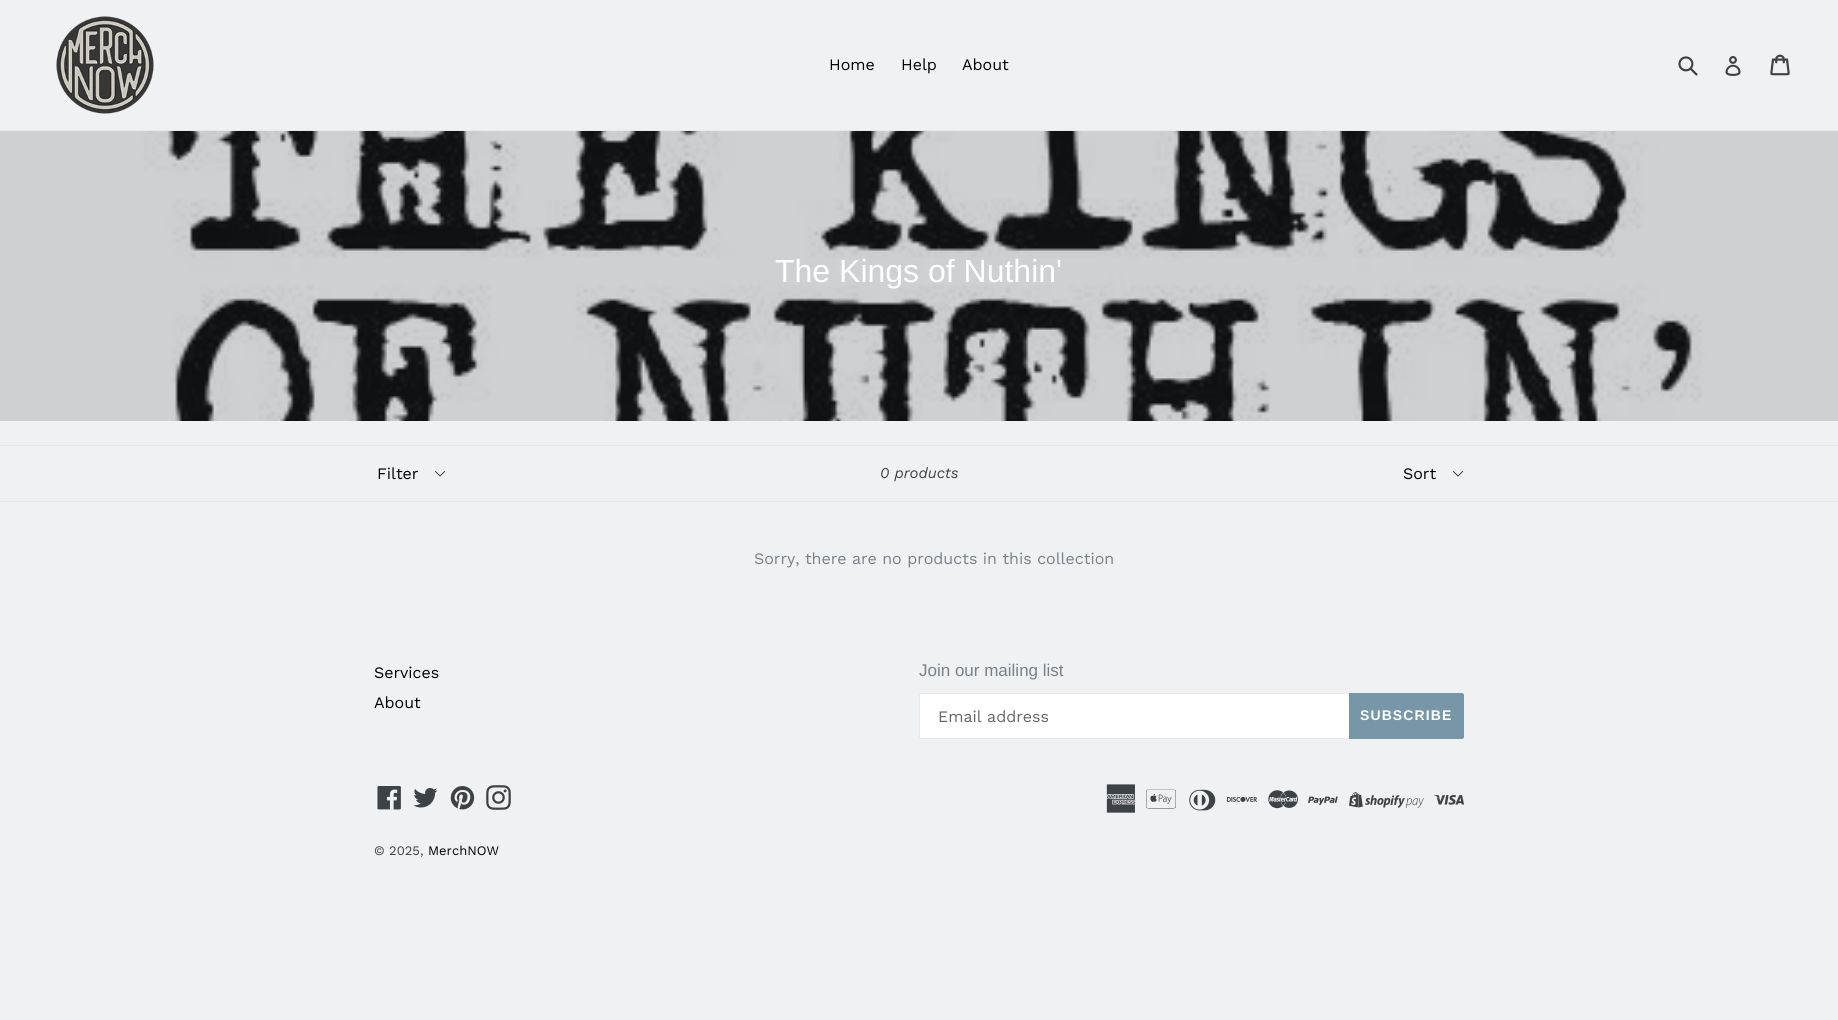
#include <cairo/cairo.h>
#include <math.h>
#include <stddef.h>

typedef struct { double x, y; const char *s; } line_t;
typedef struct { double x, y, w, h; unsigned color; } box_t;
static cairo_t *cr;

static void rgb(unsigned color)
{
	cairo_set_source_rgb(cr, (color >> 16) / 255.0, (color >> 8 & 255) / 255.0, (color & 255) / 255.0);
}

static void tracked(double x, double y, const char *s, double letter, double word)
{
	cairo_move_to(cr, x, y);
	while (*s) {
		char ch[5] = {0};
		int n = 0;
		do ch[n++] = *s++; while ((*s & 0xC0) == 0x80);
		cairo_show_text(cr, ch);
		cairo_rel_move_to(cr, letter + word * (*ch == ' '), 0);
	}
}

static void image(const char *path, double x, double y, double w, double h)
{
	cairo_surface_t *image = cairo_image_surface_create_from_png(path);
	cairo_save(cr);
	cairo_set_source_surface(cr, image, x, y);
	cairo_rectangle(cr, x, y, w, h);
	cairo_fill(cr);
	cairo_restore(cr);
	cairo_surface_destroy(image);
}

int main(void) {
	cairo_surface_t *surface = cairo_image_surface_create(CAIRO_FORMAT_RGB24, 1838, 1020);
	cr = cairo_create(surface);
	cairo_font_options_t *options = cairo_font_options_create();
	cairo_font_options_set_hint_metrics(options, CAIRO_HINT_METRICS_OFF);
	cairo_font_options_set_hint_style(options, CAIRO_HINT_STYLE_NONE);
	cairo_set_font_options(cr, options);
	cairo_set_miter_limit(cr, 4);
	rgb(0xf0f1f2);
	cairo_paint(cr);
	rgb(0xe8e9eb);
	cairo_rectangle(cr, 0, 130, 1838, 1);
	cairo_fill(cr);
	image("img/1.png", 56, 16, 98, 98);
	image("img/2.png", 1678, 56, 20, 20);
	image("img/3.png", 1725, 56, 16, 20);
	image("img/4.png", 1770, 54, 20, 22);
	image("img/5.png", 0, 131, 1838, 290);
	cairo_rectangle(cr, 0, 445, 1838, 1);
	cairo_fill(cr);
	cairo_rectangle(cr, 0, 501, 1838, 1);
	cairo_fill(cr);
	image("img/6.png", 434, 470, 12, 7);
	image("img/6.png", 1452, 470, 12, 7);
	rgb(0xffffff);
	cairo_new_path(cr);
	cairo_move_to(cr, 921, 693);
	cairo_line_to(cr, 1349, 693);
	cairo_line_to(cr, 1349, 739);
	cairo_line_to(cr, 921, 739);
	cairo_curve_to(cr, 920, 739, 919, 738, 919, 737);
	cairo_line_to(cr, 919, 695);
	cairo_curve_to(cr, 919, 694, 920, 693, 921, 693);
	cairo_close_path(cr);
	cairo_fill(cr);
	{
		static const box_t items[] = {
			{920, 693, 429, 1, 0xe8e9eb},
			{920, 738, 429, 1, 0xe8e9eb},
			{919, 694, 1, 44, 0xe8e9eb},
		};
		for (size_t i = 0; i < sizeof items / sizeof *items; i++) {
			rgb(items[i].color);
			cairo_rectangle(cr, items[i].x, items[i].y, items[i].w, items[i].h);
			cairo_fill(cr);
		}
	}
	rgb(0x7796a8);
	cairo_new_path(cr);
	cairo_move_to(cr, 1349, 693);
	cairo_line_to(cr, 1462, 693);
	cairo_curve_to(cr, 1463, 693, 1464, 694, 1464, 695);
	cairo_line_to(cr, 1464, 737);
	cairo_curve_to(cr, 1464, 738, 1463, 739, 1462, 739);
	cairo_line_to(cr, 1349, 739);
	cairo_close_path(cr);
	cairo_fill(cr);
	image("img/7.png", 377, 786, 24, 24);
	image("img/8.png", 413, 788, 25, 20);
	image("img/9.png", 450, 786, 25, 24);
	image("img/10.png", 486, 785, 25, 25);
	image("img/11.png", 1106, 784, 30, 29);
	image("img/12.png", 1146, 789, 30, 20);
	image("img/13.png", 1189, 789, 27, 22);
	image("img/14.png", 1227, 796, 30, 6);
	image("img/15.png", 1268, 790, 30, 19);
	image("img/16.png", 1308, 796, 30, 9);
	image("img/17.png", 1349, 792, 75, 16);
	image("img/18.png", 1434, 795, 30, 10);
	cairo_select_font_face(cr, "Work Sans", CAIRO_FONT_SLANT_NORMAL, CAIRO_FONT_WEIGHT_NORMAL);
	cairo_set_font_size(cr, 16);
	rgb(0x000000);
	{
		static const line_t items[] = {
			{829, 70, "Home"},
			{901, 70, "Help"},
			{962, 70, "About"},
		};
		for (size_t i = 0; i < sizeof items / sizeof *items; i++) {
			cairo_move_to(cr, items[i].x, items[i].y);
			cairo_show_text(cr, items[i].s);
		}
	}
	cairo_select_font_face(cr, "Liberation Sans", CAIRO_FONT_SLANT_NORMAL, CAIRO_FONT_WEIGHT_NORMAL);
	cairo_set_font_size(cr, 32);
	rgb(0xffffff);
	cairo_move_to(cr, 775, 282);
	cairo_show_text(cr, "The Kings of Nuthin'");
	cairo_select_font_face(cr, "Work Sans", CAIRO_FONT_SLANT_NORMAL, CAIRO_FONT_WEIGHT_NORMAL);
	cairo_set_font_size(cr, 16);
	rgb(0x000000);
	cairo_move_to(cr, 377, 479);
	cairo_show_text(cr, "Filter");
	cairo_select_font_face(cr, "Work Sans", CAIRO_FONT_SLANT_ITALIC, CAIRO_FONT_WEIGHT_NORMAL);
	cairo_set_font_size(cr, 15);
	rgb(0x3d4246);
	cairo_move_to(cr, 880, 478);
	cairo_show_text(cr, "0 products");
	cairo_select_font_face(cr, "Work Sans", CAIRO_FONT_SLANT_NORMAL, CAIRO_FONT_WEIGHT_NORMAL);
	cairo_set_font_size(cr, 16);
	rgb(0x000000);
	cairo_move_to(cr, 1403, 479);
	cairo_show_text(cr, "Sort");
	rgb(0x788188);
	cairo_move_to(cr, 754, 564);
	cairo_show_text(cr, "Sorry, there are no products in this collection");
	rgb(0x000000);
	cairo_move_to(cr, 374, 678);
	cairo_show_text(cr, "Services");
	cairo_move_to(cr, 374, 708);
	cairo_show_text(cr, "About");
	cairo_select_font_face(cr, "Liberation Sans", CAIRO_FONT_SLANT_NORMAL, CAIRO_FONT_WEIGHT_NORMAL);
	cairo_set_font_size(cr, 17);
	rgb(0x788188);
	cairo_move_to(cr, 919, 676);
	cairo_show_text(cr, "Join our mailing list");
	cairo_select_font_face(cr, "Work Sans", CAIRO_FONT_SLANT_NORMAL, CAIRO_FONT_WEIGHT_NORMAL);
	cairo_set_font_size(cr, 16);
	rgb(0x666666);
	cairo_move_to(cr, 938, 722);
	cairo_show_text(cr, "Email address");
	cairo_select_font_face(cr, "Liberation Sans", CAIRO_FONT_SLANT_NORMAL, CAIRO_FONT_WEIGHT_BOLD);
	cairo_set_font_size(cr, 14);
	rgb(0xffffff);
	tracked(1360, 720, "SUBSCRIBE", 1.1, 0);
	cairo_select_font_face(cr, "Work Sans", CAIRO_FONT_SLANT_NORMAL, CAIRO_FONT_WEIGHT_NORMAL);
	cairo_set_font_size(cr, 13);
	rgb(0x3d4246);
	cairo_move_to(cr, 374, 855);
	cairo_show_text(cr, "© 2025,");
	rgb(0x000000);
	cairo_move_to(cr, 428, 855);
	cairo_show_text(cr, "MerchNOW");
	cairo_surface_write_to_png(surface, "page.png");
	cairo_font_options_destroy(options);
	cairo_destroy(cr);
	cairo_surface_destroy(surface);
	return 0;
}
